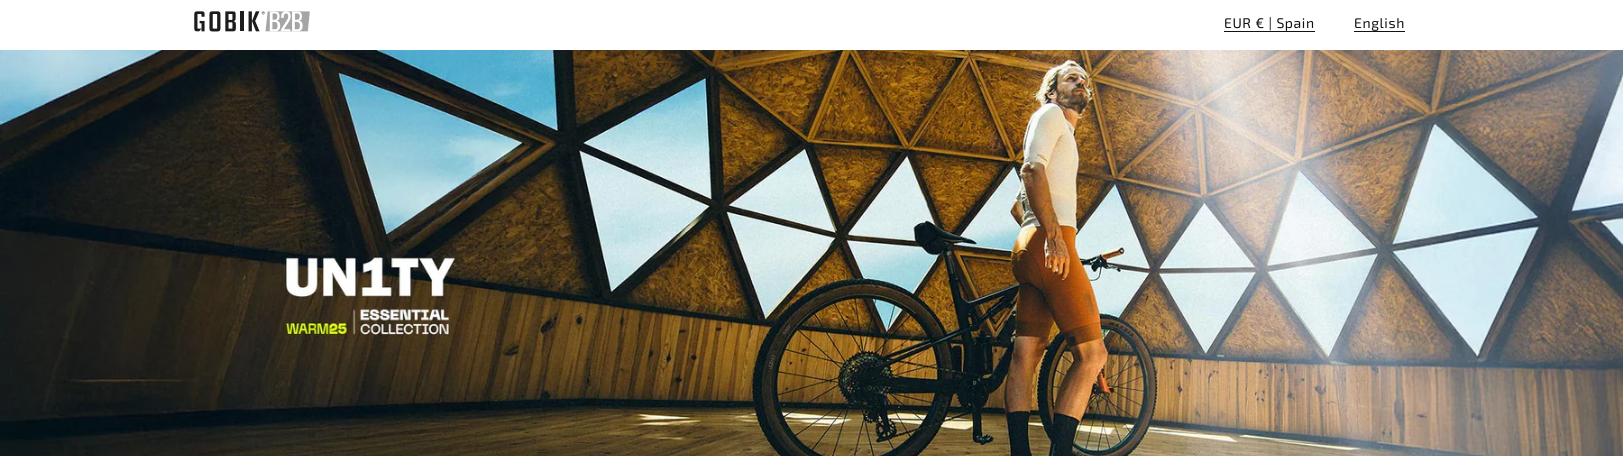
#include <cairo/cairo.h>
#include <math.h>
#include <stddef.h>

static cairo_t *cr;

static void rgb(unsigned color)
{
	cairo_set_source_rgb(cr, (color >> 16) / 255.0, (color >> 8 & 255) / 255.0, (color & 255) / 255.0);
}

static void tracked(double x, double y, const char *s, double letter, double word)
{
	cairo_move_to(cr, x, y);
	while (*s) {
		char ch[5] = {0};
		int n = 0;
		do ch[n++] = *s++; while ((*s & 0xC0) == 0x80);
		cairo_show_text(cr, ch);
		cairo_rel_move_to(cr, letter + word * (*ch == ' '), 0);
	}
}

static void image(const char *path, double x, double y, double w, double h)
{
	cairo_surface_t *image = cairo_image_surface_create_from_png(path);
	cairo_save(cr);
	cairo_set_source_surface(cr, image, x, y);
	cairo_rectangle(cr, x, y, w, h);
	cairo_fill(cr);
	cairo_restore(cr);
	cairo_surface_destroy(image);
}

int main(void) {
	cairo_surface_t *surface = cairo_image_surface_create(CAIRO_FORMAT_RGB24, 1623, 456);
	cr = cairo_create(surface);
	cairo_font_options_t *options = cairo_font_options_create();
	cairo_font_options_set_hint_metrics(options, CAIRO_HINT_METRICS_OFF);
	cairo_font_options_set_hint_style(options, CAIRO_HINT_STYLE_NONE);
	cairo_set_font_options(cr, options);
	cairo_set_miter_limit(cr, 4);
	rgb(0xffffff);
	cairo_paint(cr);
	image("img/1.png", 194, 11, 116, 21);
	rgb(0x121212);
	cairo_rectangle(cr, 1224, 31, 91, 1);
	cairo_fill(cr);
	cairo_rectangle(cr, 1354, 31, 51, 1);
	cairo_fill(cr);
	image("img/2.png", 0, 50, 1623, 406);
	cairo_select_font_face(cr, "Exo 2", CAIRO_FONT_SLANT_NORMAL, CAIRO_FONT_WEIGHT_NORMAL);
	cairo_set_font_size(cr, 14);
	tracked(1224, 28, "EUR € | Spain", 0.6, 0);
	tracked(1354, 28, "English", 0.6, 0);
	cairo_surface_write_to_png(surface, "page.png");
	cairo_font_options_destroy(options);
	cairo_destroy(cr);
	cairo_surface_destroy(surface);
	return 0;
}
